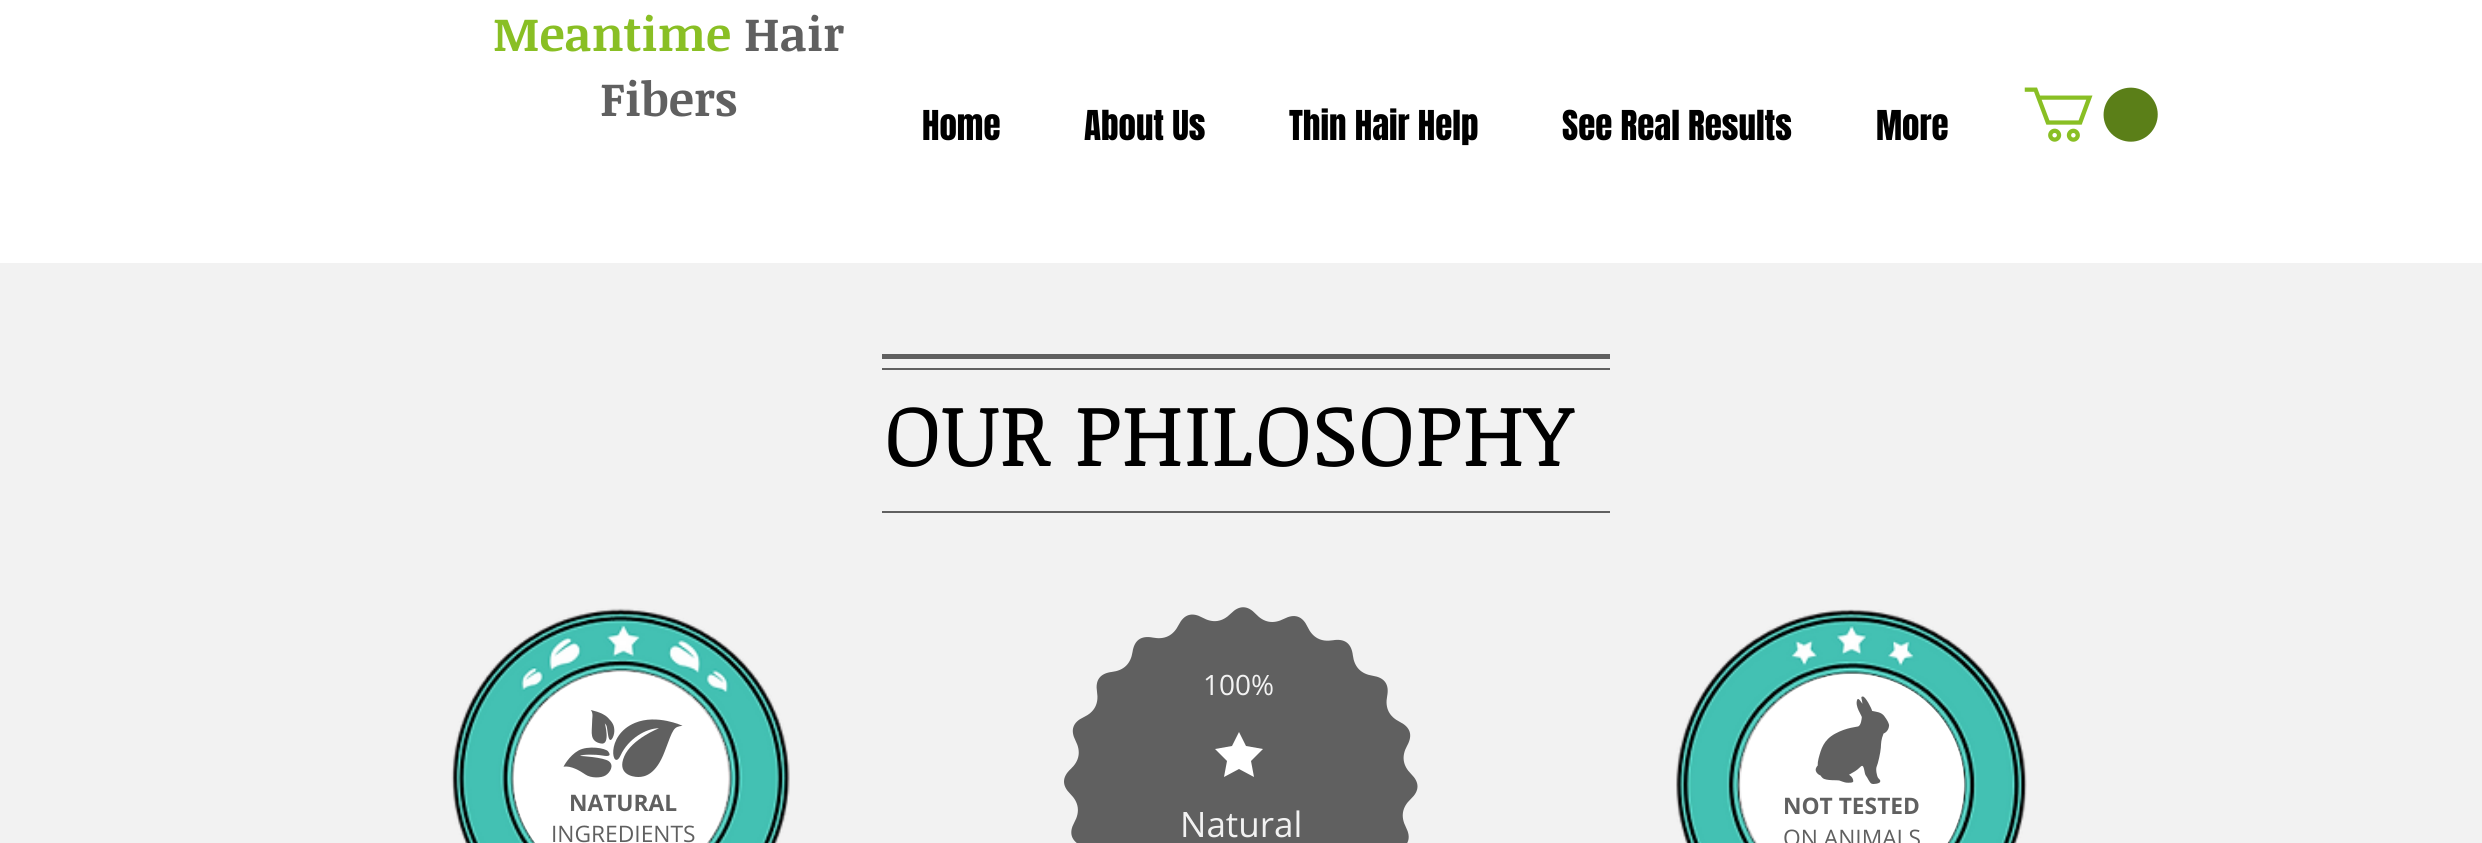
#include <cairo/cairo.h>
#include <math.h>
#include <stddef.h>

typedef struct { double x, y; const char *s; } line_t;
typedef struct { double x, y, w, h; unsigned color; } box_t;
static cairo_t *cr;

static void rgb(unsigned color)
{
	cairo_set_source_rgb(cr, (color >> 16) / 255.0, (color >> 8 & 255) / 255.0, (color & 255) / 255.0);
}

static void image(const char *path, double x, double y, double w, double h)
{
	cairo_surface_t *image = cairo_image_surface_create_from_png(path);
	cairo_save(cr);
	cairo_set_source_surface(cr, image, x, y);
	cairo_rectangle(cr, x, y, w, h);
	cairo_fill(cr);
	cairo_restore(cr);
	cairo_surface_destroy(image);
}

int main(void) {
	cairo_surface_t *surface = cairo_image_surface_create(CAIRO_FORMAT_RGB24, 2482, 843);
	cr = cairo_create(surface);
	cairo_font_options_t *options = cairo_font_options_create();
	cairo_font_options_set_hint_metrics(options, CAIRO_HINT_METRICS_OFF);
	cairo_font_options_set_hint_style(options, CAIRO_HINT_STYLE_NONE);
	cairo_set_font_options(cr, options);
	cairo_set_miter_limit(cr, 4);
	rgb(0xffffff);
	cairo_paint(cr);
	image("img/1.png", 2024, 87, 134, 55);
	{
		static const box_t items[] = {
			{0, 263, 2482, 580, 0xf2f2f2},
			{882, 354, 728, 5, 0x606060},
			{882, 368, 728, 2, 0x606060},
			{882, 511, 728, 2, 0x606060},
		};
		for (size_t i = 0; i < sizeof items / sizeof *items; i++) {
			rgb(items[i].color);
			cairo_rectangle(cr, items[i].x, items[i].y, items[i].w, items[i].h);
			cairo_fill(cr);
		}
	}
	image("img/2.png", 451, 608, 339, 235);
	image("img/3.png", 1064, 607, 354, 236);
	image("img/4.png", 1676, 609, 351, 234);
	rgb(0xffffff);
	cairo_new_path(cr);
	cairo_move_to(cr, 728, 779);
	cairo_curve_to(cr, 728, 838, 680, 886, 621, 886);
	cairo_curve_to(cr, 562, 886, 514, 838, 514, 779);
	cairo_curve_to(cr, 514, 720, 562, 672, 621, 672);
	cairo_curve_to(cr, 680, 672, 728, 720, 728, 779);
	cairo_close_path(cr);
	cairo_fill(cr);
	cairo_new_path(cr);
	cairo_move_to(cr, 1964, 785);
	cairo_curve_to(cr, 1964, 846, 1914, 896, 1852, 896);
	cairo_curve_to(cr, 1791, 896, 1741, 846, 1741, 785);
	cairo_curve_to(cr, 1741, 724, 1791, 674, 1852, 674);
	cairo_curve_to(cr, 1914, 674, 1964, 724, 1964, 785);
	cairo_close_path(cr);
	cairo_fill(cr);
	image("img/5.png", 563, 710, 120, 68);
	cairo_new_path(cr);
	cairo_move_to(cr, 1239, 732);
	cairo_line_to(cr, 1246, 746);
	cairo_line_to(cr, 1263, 749);
	cairo_line_to(cr, 1251, 761);
	cairo_line_to(cr, 1254, 777);
	cairo_line_to(cr, 1239, 769);
	cairo_line_to(cr, 1224, 777);
	cairo_line_to(cr, 1227, 761);
	cairo_line_to(cr, 1215, 749);
	cairo_line_to(cr, 1232, 746);
	cairo_close_path(cr);
	cairo_fill(cr);
	image("img/6.png", 1815, 696, 75, 88);
	cairo_select_font_face(cr, "Noticia Text", CAIRO_FONT_SLANT_NORMAL, CAIRO_FONT_WEIGHT_BOLD);
	cairo_set_font_size(cr, 47.25);
	rgb(0x89bf24);
	cairo_move_to(cr, 493, 51);
	cairo_show_text(cr, "Meantime");
	rgb(0x606060);
	cairo_move_to(cr, 744, 51);
	cairo_show_text(cr, "Hair");
	cairo_move_to(cr, 600, 116);
	cairo_show_text(cr, "Fibers");
	cairo_select_font_face(cr, "Anton", CAIRO_FONT_SLANT_NORMAL, CAIRO_FONT_WEIGHT_NORMAL);
	cairo_set_font_size(cr, 35);
	rgb(0x000000);
	{
		static const line_t items[] = {
			{922, 140, "Home"},
			{1084, 140, "About Us"},
			{1289, 140, "Thin Hair Help"},
			{1562, 140, "See Real Results"},
			{1876, 140, "More"},
		};
		for (size_t i = 0; i < sizeof items / sizeof *items; i++) {
			cairo_move_to(cr, items[i].x, items[i].y);
			cairo_show_text(cr, items[i].s);
		}
	}
	cairo_select_font_face(cr, "Noticia Text", CAIRO_FONT_SLANT_NORMAL, CAIRO_FONT_WEIGHT_NORMAL);
	cairo_set_font_size(cr, 87.5);
	cairo_move_to(cr, 884, 466);
	cairo_show_text(cr, "OUR PHILOSOPHY");
	cairo_select_font_face(cr, "Open Sans", CAIRO_FONT_SLANT_NORMAL, CAIRO_FONT_WEIGHT_NORMAL);
	cairo_set_font_size(cr, 28);
	rgb(0xf2f2f2);
	cairo_move_to(cr, 1203, 695);
	cairo_show_text(cr, "100%");
	cairo_select_font_face(cr, "Open Sans", CAIRO_FONT_SLANT_NORMAL, CAIRO_FONT_WEIGHT_BOLD);
	cairo_set_font_size(cr, 22.75);
	rgb(0x606060);
	cairo_move_to(cr, 569, 811);
	cairo_show_text(cr, "NATURAL");
	cairo_select_font_face(cr, "Open Sans", CAIRO_FONT_SLANT_NORMAL, CAIRO_FONT_WEIGHT_NORMAL);
	cairo_move_to(cr, 551, 842);
	cairo_show_text(cr, "INGREDIENTS");
	cairo_set_font_size(cr, 35);
	rgb(0xf2f2f2);
	cairo_move_to(cr, 1180, 837);
	cairo_show_text(cr, "Natural");
	cairo_select_font_face(cr, "Open Sans", CAIRO_FONT_SLANT_NORMAL, CAIRO_FONT_WEIGHT_BOLD);
	cairo_set_font_size(cr, 22.75);
	rgb(0x606060);
	cairo_move_to(cr, 1783, 814);
	cairo_show_text(cr, "NOT TESTED");
	cairo_select_font_face(cr, "Open Sans", CAIRO_FONT_SLANT_NORMAL, CAIRO_FONT_WEIGHT_NORMAL);
	cairo_move_to(cr, 1783, 846);
	cairo_show_text(cr, "ON ANIMALS");
	cairo_surface_write_to_png(surface, "page.png");
	cairo_font_options_destroy(options);
	cairo_destroy(cr);
	cairo_surface_destroy(surface);
	return 0;
}
